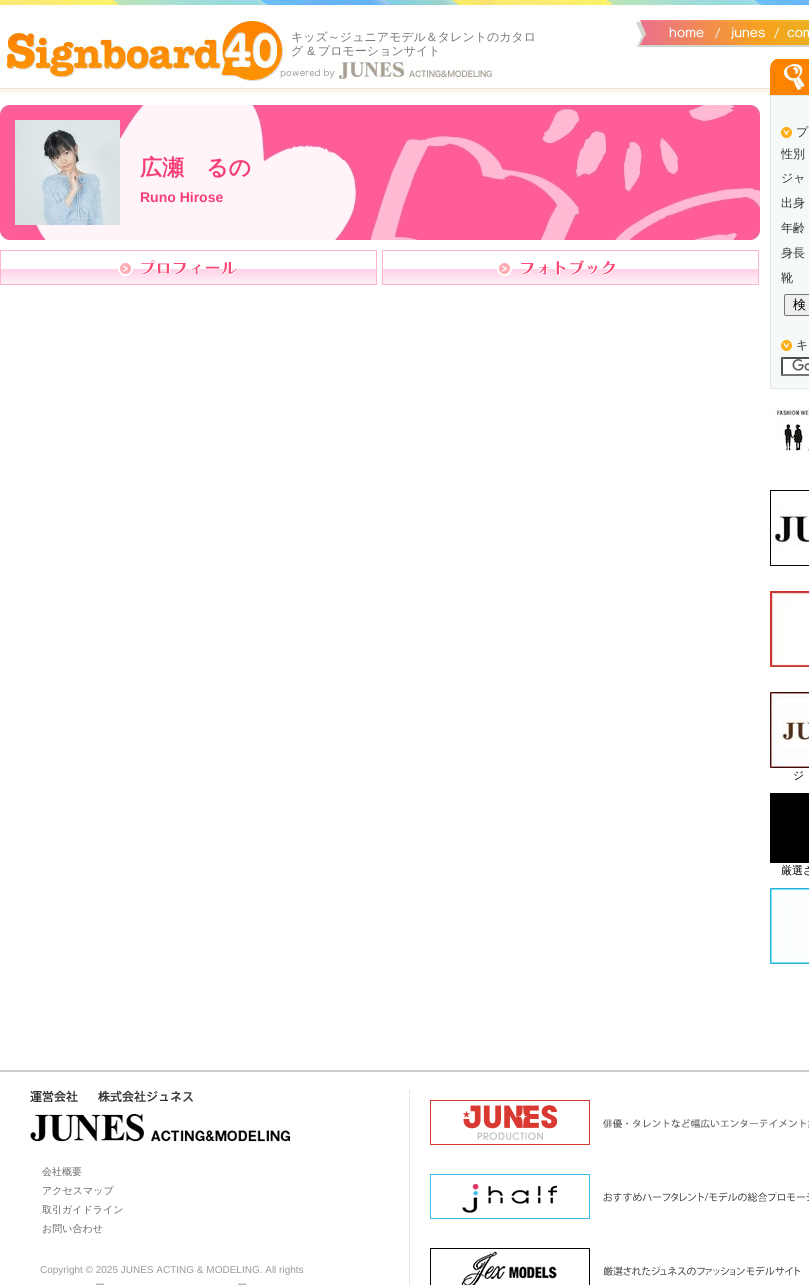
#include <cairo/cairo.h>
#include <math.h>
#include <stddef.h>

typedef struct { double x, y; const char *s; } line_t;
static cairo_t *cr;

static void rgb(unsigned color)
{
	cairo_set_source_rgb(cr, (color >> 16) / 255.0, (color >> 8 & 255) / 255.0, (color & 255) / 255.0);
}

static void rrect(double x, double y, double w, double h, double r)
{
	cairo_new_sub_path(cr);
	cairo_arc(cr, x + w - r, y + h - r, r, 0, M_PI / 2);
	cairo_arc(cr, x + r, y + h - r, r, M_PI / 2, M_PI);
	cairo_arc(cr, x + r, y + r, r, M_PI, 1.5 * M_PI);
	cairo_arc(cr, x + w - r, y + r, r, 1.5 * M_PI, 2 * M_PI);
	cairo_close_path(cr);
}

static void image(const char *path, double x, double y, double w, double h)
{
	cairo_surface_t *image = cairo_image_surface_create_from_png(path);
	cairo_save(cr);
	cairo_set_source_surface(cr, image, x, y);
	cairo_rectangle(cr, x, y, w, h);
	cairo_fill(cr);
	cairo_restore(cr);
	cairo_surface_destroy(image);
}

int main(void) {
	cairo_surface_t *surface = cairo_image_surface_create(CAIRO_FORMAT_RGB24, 809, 1285);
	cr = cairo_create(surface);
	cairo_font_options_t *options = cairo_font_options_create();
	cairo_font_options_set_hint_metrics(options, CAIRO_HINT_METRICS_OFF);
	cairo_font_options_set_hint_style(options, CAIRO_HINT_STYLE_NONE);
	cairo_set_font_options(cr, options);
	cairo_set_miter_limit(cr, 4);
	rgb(0xffffff);
	cairo_paint(cr);
	image("img/1.png", 0, 0, 809, 95);
	image("img/2.png", 0, 105, 760, 135);
	image("img/3.png", 15, 120, 105, 105);
	image("img/4.png", 0, 250, 377, 35);
	image("img/5.png", 382, 250, 377, 35);
	rgb(0xf5faf9);
	cairo_rectangle(cr, 770.5, 95.5, 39, 293);
	cairo_fill_preserve(cr);
	rgb(0xe3e5e2);
	cairo_set_line_width(cr, 1);
	cairo_stroke(cr);
	image("img/6.png", 781, 127, 11, 11);
	rgb(0xefefef);
	rrect(784.5, 294.5, 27, 21, 1.5);
	cairo_fill_preserve(cr);
	rgb(0x767676);
	cairo_stroke(cr);
	image("img/6.png", 781, 340, 11, 11);
	rgb(0xffffff);
	cairo_rectangle(cr, 781, 357, 28, 19);
	cairo_fill(cr);
	image("img/7.png", 792, 359, 17, 12);
	rgb(0x4f4f4f);
	cairo_new_path(cr);
	cairo_move_to(cr, 781, 357);
	cairo_line_to(cr, 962, 357);
	cairo_line_to(cr, 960, 359);
	cairo_line_to(cr, 783, 359);
	cairo_close_path(cr);
	cairo_fill(cr);
	rgb(0x767676);
	cairo_new_path(cr);
	cairo_move_to(cr, 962, 376);
	cairo_line_to(cr, 781, 376);
	cairo_line_to(cr, 783, 374);
	cairo_line_to(cr, 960, 374);
	cairo_close_path(cr);
	cairo_fill(cr);
	rgb(0x4f4f4f);
	cairo_new_path(cr);
	cairo_move_to(cr, 781, 376);
	cairo_line_to(cr, 781, 357);
	cairo_line_to(cr, 783, 359);
	cairo_line_to(cr, 783, 374);
	cairo_close_path(cr);
	cairo_fill(cr);
	image("img/8.png", 773, 408, 36, 46);
	image("img/9.png", 770, 490, 39, 76);
	image("img/10.png", 770, 591, 39, 76);
	image("img/11.png", 770, 692, 39, 76);
	rgb(0x000000);
	cairo_rectangle(cr, 770, 793, 39, 70);
	cairo_fill(cr);
	image("img/12.png", 770, 888, 39, 76);
	rgb(0xcccccc);
	cairo_rectangle(cr, 0, 1070, 809, 2);
	cairo_fill(cr);
	image("img/13.png", 30, 1090, 260, 52);
	cairo_new_path(cr);
	cairo_move_to(cr, 409.5, 1090);
	cairo_line_to(cr, 409.5, 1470);
	cairo_set_dash(cr, (double[]){1, 1}, 2, 0);
	cairo_stroke(cr);
	image("img/14.png", 430, 1100, 379, 45);
	image("img/15.png", 430, 1174, 379, 45);
	image("img/16.png", 430, 1248, 370, 37);
	cairo_select_font_face(cr, "WenQuanYi Zen Hei Medium", CAIRO_FONT_SLANT_NORMAL, CAIRO_FONT_WEIGHT_NORMAL);
	cairo_set_font_size(cr, 12);
	rgb(0x777777);
	cairo_move_to(cr, 291, 41);
	cairo_show_text(cr, "キッズ～ジュニアモデル＆タレントのカタロ");
	cairo_move_to(cr, 291, 55);
	cairo_show_text(cr, "グ");
	cairo_select_font_face(cr, "Liberation Sans", CAIRO_FONT_SLANT_NORMAL, CAIRO_FONT_WEIGHT_NORMAL);
	cairo_move_to(cr, 307, 55);
	cairo_show_text(cr, "&");
	cairo_select_font_face(cr, "WenQuanYi Zen Hei Medium", CAIRO_FONT_SLANT_NORMAL, CAIRO_FONT_WEIGHT_NORMAL);
	cairo_move_to(cr, 318, 55);
	cairo_show_text(cr, "プロモーションサイト");
	cairo_select_font_face(cr, "WenQuanYi Zen Hei", CAIRO_FONT_SLANT_NORMAL, CAIRO_FONT_WEIGHT_BOLD);
	cairo_set_font_size(cr, 22);
	rgb(0xf73d75);
	cairo_move_to(cr, 140, 175);
	cairo_show_text(cr, "広瀬　るの");
	cairo_select_font_face(cr, "Liberation Sans", CAIRO_FONT_SLANT_NORMAL, CAIRO_FONT_WEIGHT_BOLD);
	cairo_set_font_size(cr, 14);
	cairo_move_to(cr, 140, 202);
	cairo_show_text(cr, "Runo Hirose");
	cairo_select_font_face(cr, "WenQuanYi Zen Hei Medium", CAIRO_FONT_SLANT_NORMAL, CAIRO_FONT_WEIGHT_NORMAL);
	cairo_set_font_size(cr, 12);
	rgb(0x333333);
	{
		static const line_t items[] = {
			{796, 136, "プ"},
			{781, 158, "性別"},
			{781, 182, "ジャ"},
			{781, 207, "出身"},
			{781, 232, "年齢"},
			{781, 257, "身長"},
			{781, 282, "靴"},
		};
		for (size_t i = 0; i < sizeof items / sizeof *items; i++) {
			cairo_move_to(cr, items[i].x, items[i].y);
			cairo_show_text(cr, items[i].s);
		}
	}
	cairo_set_font_size(cr, 13);
	rgb(0x000000);
	cairo_move_to(cr, 793, 309);
	cairo_show_text(cr, "検");
	cairo_set_font_size(cr, 12);
	rgb(0x333333);
	cairo_move_to(cr, 796, 349);
	cairo_show_text(cr, "キ");
	cairo_set_font_size(cr, 11);
	rgb(0x000000);
	cairo_move_to(cr, 793, 779);
	cairo_show_text(cr, "ジ");
	cairo_move_to(cr, 781, 874);
	cairo_show_text(cr, "厳選さ");
	cairo_set_font_size(cr, 10);
	rgb(0x666666);
	{
		static const line_t items[] = {
			{42, 1175, "会社概要"},
			{42, 1194, "アクセスマップ"},
			{42, 1213, "取引ガイドライン"},
			{42, 1232, "お問い合わせ"},
		};
		for (size_t i = 0; i < sizeof items / sizeof *items; i++) {
			cairo_move_to(cr, items[i].x, items[i].y);
			cairo_show_text(cr, items[i].s);
		}
	}
	cairo_select_font_face(cr, "Liberation Sans", CAIRO_FONT_SLANT_NORMAL, CAIRO_FONT_WEIGHT_NORMAL);
	rgb(0x999999);
	cairo_move_to(cr, 40, 1273);
	cairo_show_text(cr, "Copyright © 2025 JUNES ACTING & MODELING. All rights");
	cairo_select_font_face(cr, "WenQuanYi Zen Hei Medium", CAIRO_FONT_SLANT_NORMAL, CAIRO_FONT_WEIGHT_NORMAL);
	cairo_move_to(cr, 95, 1288);
	cairo_show_text(cr, "ー");
	cairo_move_to(cr, 237, 1288);
	cairo_show_text(cr, "ー");
	cairo_surface_write_to_png(surface, "page.png");
	cairo_font_options_destroy(options);
	cairo_destroy(cr);
	cairo_surface_destroy(surface);
	return 0;
}
